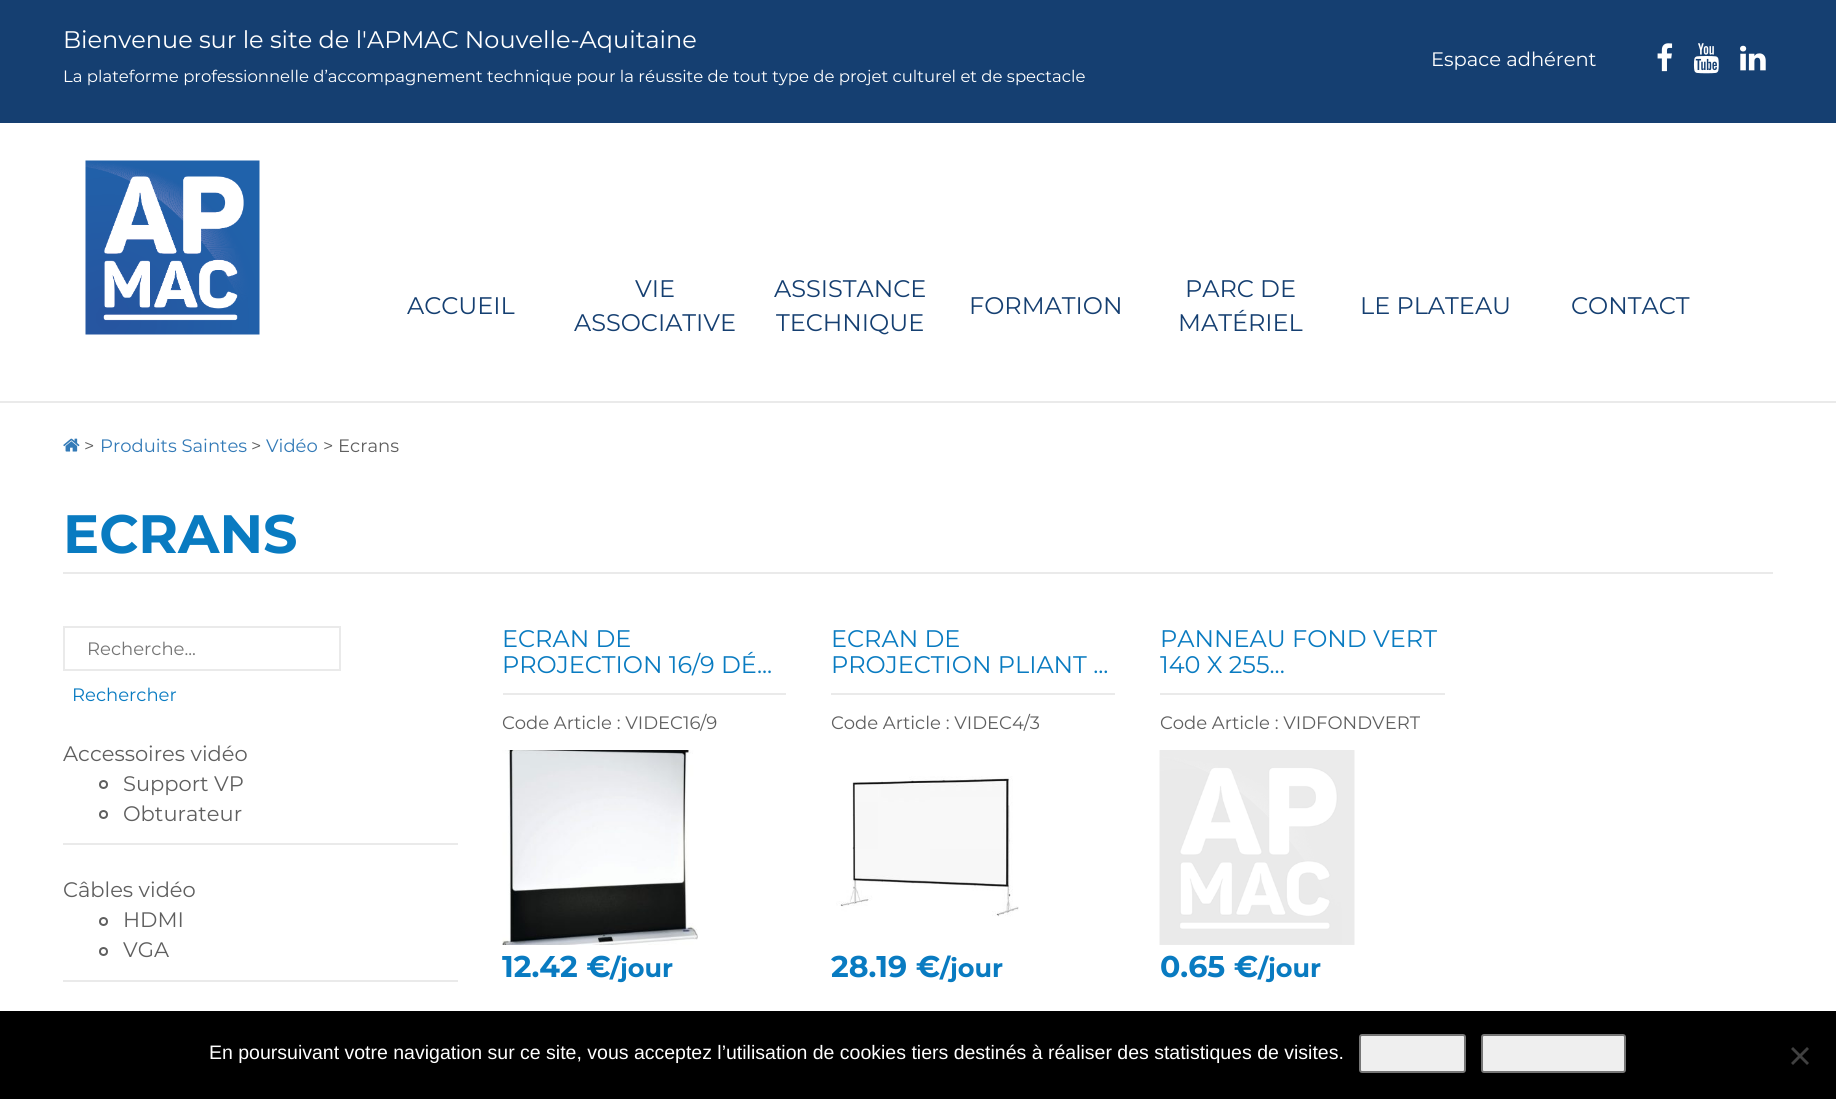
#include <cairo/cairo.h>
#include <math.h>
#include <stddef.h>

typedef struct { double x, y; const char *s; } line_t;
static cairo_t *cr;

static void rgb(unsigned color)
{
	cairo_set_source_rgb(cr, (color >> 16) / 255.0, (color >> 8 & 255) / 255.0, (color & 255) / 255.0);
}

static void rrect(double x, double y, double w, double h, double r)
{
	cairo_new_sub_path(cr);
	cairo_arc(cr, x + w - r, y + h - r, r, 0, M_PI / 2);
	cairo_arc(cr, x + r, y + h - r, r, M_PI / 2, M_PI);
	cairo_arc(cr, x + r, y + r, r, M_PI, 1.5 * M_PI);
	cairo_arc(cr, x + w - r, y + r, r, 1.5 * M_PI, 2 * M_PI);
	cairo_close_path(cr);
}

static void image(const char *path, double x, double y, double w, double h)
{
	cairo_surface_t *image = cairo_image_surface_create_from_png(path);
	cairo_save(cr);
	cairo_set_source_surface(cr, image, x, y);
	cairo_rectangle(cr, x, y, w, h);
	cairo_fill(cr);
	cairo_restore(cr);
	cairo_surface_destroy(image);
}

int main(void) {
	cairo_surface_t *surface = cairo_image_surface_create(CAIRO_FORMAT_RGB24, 1836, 1099);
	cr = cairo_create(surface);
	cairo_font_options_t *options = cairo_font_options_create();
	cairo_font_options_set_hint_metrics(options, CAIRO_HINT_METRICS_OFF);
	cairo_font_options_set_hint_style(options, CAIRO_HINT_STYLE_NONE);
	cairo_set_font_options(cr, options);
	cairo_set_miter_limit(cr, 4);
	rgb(0xffffff);
	cairo_paint(cr);
	rgb(0x153f71);
	cairo_rectangle(cr, 0, 0, 1836, 123);
	cairo_fill(cr);
	image("img/1.png", 1657, 43, 16, 29);
	image("img/2.png", 1693, 43, 26, 31);
	image("img/3.png", 1740, 45, 26, 26);
	image("img/4.png", 85, 160, 175, 175);
	rgb(0xeaeaea);
	cairo_rectangle(cr, 0, 401, 1836, 2);
	cairo_fill(cr);
	image("img/5.png", 63, 438, 17, 14);
	cairo_rectangle(cr, 63, 572, 1710, 2);
	cairo_fill(cr);
	cairo_rectangle(cr, 64, 627, 276, 43);
	cairo_stroke(cr);
	cairo_rectangle(cr, 63, 843, 395, 2);
	cairo_fill(cr);
	cairo_arc(cr, 103.5, 784.5, 3.5, 0, 2 * M_PI);
	rgb(0x5f5f5f);
	cairo_stroke(cr);
	cairo_arc(cr, 103.5, 814.5, 3.5, 0, 2 * M_PI);
	cairo_stroke(cr);
	rgb(0xeaeaea);
	cairo_rectangle(cr, 63, 980, 395, 2);
	cairo_fill(cr);
	cairo_arc(cr, 103.5, 921.5, 3.5, 0, 2 * M_PI);
	rgb(0x5f5f5f);
	cairo_stroke(cr);
	cairo_arc(cr, 103.5, 951.5, 3.5, 0, 2 * M_PI);
	cairo_stroke(cr);
	rgb(0xeaeaea);
	cairo_rectangle(cr, 503, 693, 283, 2);
	cairo_fill(cr);
	image("img/6.png", 502, 750, 196, 195);
	cairo_rectangle(cr, 831, 693, 284, 2);
	cairo_fill(cr);
	image("img/7.png", 836, 776, 183, 141);
	cairo_rectangle(cr, 1160, 693, 285, 2);
	cairo_fill(cr);
	image("img/8.png", 1159, 750, 196, 195);
	rgb(0x000000);
	cairo_rectangle(cr, 0, 1011, 1836, 88);
	cairo_fill(cr);
	rgb(0xefefef);
	rrect(1360, 1035, 105, 37, 2);
	cairo_fill_preserve(cr);
	rgb(0x767676);
	cairo_stroke(cr);
	rgb(0xefefef);
	rrect(1482, 1035, 143, 37, 2);
	cairo_fill_preserve(cr);
	rgb(0x767676);
	cairo_stroke(cr);
	rgb(0x404040);
	cairo_new_path(cr);
	cairo_move_to(cr, 1807, 1047);
	cairo_line_to(cr, 1809, 1049);
	cairo_line_to(cr, 1793, 1065);
	cairo_line_to(cr, 1791, 1063);
	cairo_close_path(cr);
	cairo_fill(cr);
	cairo_new_path(cr);
	cairo_move_to(cr, 1791, 1049);
	cairo_line_to(cr, 1793, 1047);
	cairo_line_to(cr, 1809, 1063);
	cairo_line_to(cr, 1807, 1065);
	cairo_close_path(cr);
	cairo_fill(cr);
	cairo_select_font_face(cr, "Montserrat", CAIRO_FONT_SLANT_NORMAL, CAIRO_FONT_WEIGHT_NORMAL);
	cairo_set_font_size(cr, 24);
	rgb(0xffffff);
	cairo_move_to(cr, 63, 48);
	cairo_show_text(cr, "Bienvenue sur le site de l'APMAC Nouvelle-Aquitaine");
	cairo_set_font_size(cr, 16.5);
	cairo_move_to(cr, 63, 82);
	cairo_show_text(cr, "La plateforme professionnelle d’accompagnement technique pour la réussite de tout type de projet culturel et de spectacle");
	cairo_set_font_size(cr, 19.5);
	cairo_move_to(cr, 1431, 66);
	cairo_show_text(cr, "Espace adhérent");
	cairo_set_font_size(cr, 24);
	rgb(0x153f71);
	{
		static const line_t items[] = {
			{407, 314, "ACCUEIL"},
			{635, 297, "VIE"},
			{574, 331, "ASSOCIATIVE"},
			{774, 297, "ASSISTANCE"},
			{776, 331, "TECHNIQUE"},
			{969, 314, "FORMATION"},
			{1185, 297, "PARC DE"},
			{1178, 331, "MATÉRIEL"},
			{1360, 314, "LE PLATEAU"},
			{1571, 314, "CONTACT"},
		};
		for (size_t i = 0; i < sizeof items / sizeof *items; i++) {
			cairo_move_to(cr, items[i].x, items[i].y);
			cairo_show_text(cr, items[i].s);
		}
	}
	cairo_set_font_size(cr, 18);
	rgb(0x5f5f5f);
	cairo_move_to(cr, 84, 452);
	cairo_show_text(cr, ">");
	rgb(0x337ab7);
	cairo_move_to(cr, 100, 452);
	cairo_show_text(cr, "Produits Saintes");
	rgb(0x5f5f5f);
	cairo_move_to(cr, 251, 452);
	cairo_show_text(cr, ">");
	rgb(0x337ab7);
	cairo_move_to(cr, 266, 452);
	cairo_show_text(cr, "Vidéo");
	rgb(0x5f5f5f);
	cairo_move_to(cr, 323, 452);
	cairo_show_text(cr, "> Ecrans");
	cairo_select_font_face(cr, "Montserrat", CAIRO_FONT_SLANT_NORMAL, CAIRO_FONT_WEIGHT_BOLD);
	cairo_set_font_size(cr, 54);
	rgb(0x097bc1);
	cairo_move_to(cr, 63, 553);
	cairo_show_text(cr, "ECRANS");
	cairo_select_font_face(cr, "Montserrat", CAIRO_FONT_SLANT_NORMAL, CAIRO_FONT_WEIGHT_NORMAL);
	cairo_set_font_size(cr, 18);
	rgb(0x757575);
	cairo_move_to(cr, 87, 655);
	cairo_show_text(cr, "Recherche...");
	rgb(0x097bc1);
	cairo_move_to(cr, 72, 701);
	cairo_show_text(cr, "Rechercher");
	cairo_set_font_size(cr, 21);
	rgb(0x5f5f5f);
	{
		static const line_t items[] = {
			{63, 761, "Accessoires vidéo"},
			{123, 791, "Support VP"},
			{123, 821, "Obturateur"},
			{63, 897, "Câbles vidéo"},
			{123, 927, "HDMI"},
			{123, 957, "VGA"},
		};
		for (size_t i = 0; i < sizeof items / sizeof *items; i++) {
			cairo_move_to(cr, items[i].x, items[i].y);
			cairo_show_text(cr, items[i].s);
		}
	}
	cairo_set_font_size(cr, 24);
	rgb(0x097bc1);
	cairo_move_to(cr, 502, 647);
	cairo_show_text(cr, "ECRAN DE");
	cairo_move_to(cr, 502, 673);
	cairo_show_text(cr, "PROJECTION 16/9 DÉ...");
	cairo_set_font_size(cr, 18);
	rgb(0x5f5f5f);
	cairo_move_to(cr, 502, 729);
	cairo_show_text(cr, "Code Article : VIDEC16/9");
	cairo_select_font_face(cr, "Montserrat", CAIRO_FONT_SLANT_NORMAL, CAIRO_FONT_WEIGHT_BOLD);
	cairo_set_font_size(cr, 30);
	rgb(0x097bc1);
	cairo_move_to(cr, 502, 977);
	cairo_show_text(cr, "12.42 €");
	cairo_set_font_size(cr, 25.5);
	cairo_move_to(cr, 610, 977);
	cairo_show_text(cr, "/jour");
	cairo_select_font_face(cr, "Montserrat", CAIRO_FONT_SLANT_NORMAL, CAIRO_FONT_WEIGHT_NORMAL);
	cairo_set_font_size(cr, 24);
	cairo_move_to(cr, 831, 647);
	cairo_show_text(cr, "ECRAN DE");
	cairo_move_to(cr, 831, 673);
	cairo_show_text(cr, "PROJECTION PLIANT ...");
	cairo_set_font_size(cr, 18);
	rgb(0x5f5f5f);
	cairo_move_to(cr, 831, 729);
	cairo_show_text(cr, "Code Article : VIDEC4/3");
	cairo_select_font_face(cr, "Montserrat", CAIRO_FONT_SLANT_NORMAL, CAIRO_FONT_WEIGHT_BOLD);
	cairo_set_font_size(cr, 30);
	rgb(0x097bc1);
	cairo_move_to(cr, 831, 977);
	cairo_show_text(cr, "28.19 €");
	cairo_set_font_size(cr, 25.5);
	cairo_move_to(cr, 940, 977);
	cairo_show_text(cr, "/jour");
	cairo_select_font_face(cr, "Montserrat", CAIRO_FONT_SLANT_NORMAL, CAIRO_FONT_WEIGHT_NORMAL);
	cairo_set_font_size(cr, 24);
	cairo_move_to(cr, 1160, 647);
	cairo_show_text(cr, "PANNEAU FOND VERT");
	cairo_move_to(cr, 1160, 673);
	cairo_show_text(cr, "140 X 255...");
	cairo_set_font_size(cr, 18);
	rgb(0x5f5f5f);
	cairo_move_to(cr, 1160, 729);
	cairo_show_text(cr, "Code Article : VIDFONDVERT");
	cairo_select_font_face(cr, "Montserrat", CAIRO_FONT_SLANT_NORMAL, CAIRO_FONT_WEIGHT_BOLD);
	cairo_set_font_size(cr, 30);
	rgb(0x097bc1);
	cairo_move_to(cr, 1160, 977);
	cairo_show_text(cr, "0.65 €");
	cairo_set_font_size(cr, 25.5);
	cairo_move_to(cr, 1258, 977);
	cairo_show_text(cr, "/jour");
	cairo_select_font_face(cr, "Liberation Sans", CAIRO_FONT_SLANT_NORMAL, CAIRO_FONT_WEIGHT_NORMAL);
	cairo_set_font_size(cr, 19.5);
	rgb(0xffffff);
	cairo_move_to(cr, 209, 1059);
	cairo_show_text(cr, "En poursuivant votre navigation sur ce site, vous acceptez l’utilisation de cookies tiers destinés à réaliser des statistiques de visites.");
	cairo_surface_write_to_png(surface, "page.png");
	cairo_font_options_destroy(options);
	cairo_destroy(cr);
	cairo_surface_destroy(surface);
	return 0;
}
